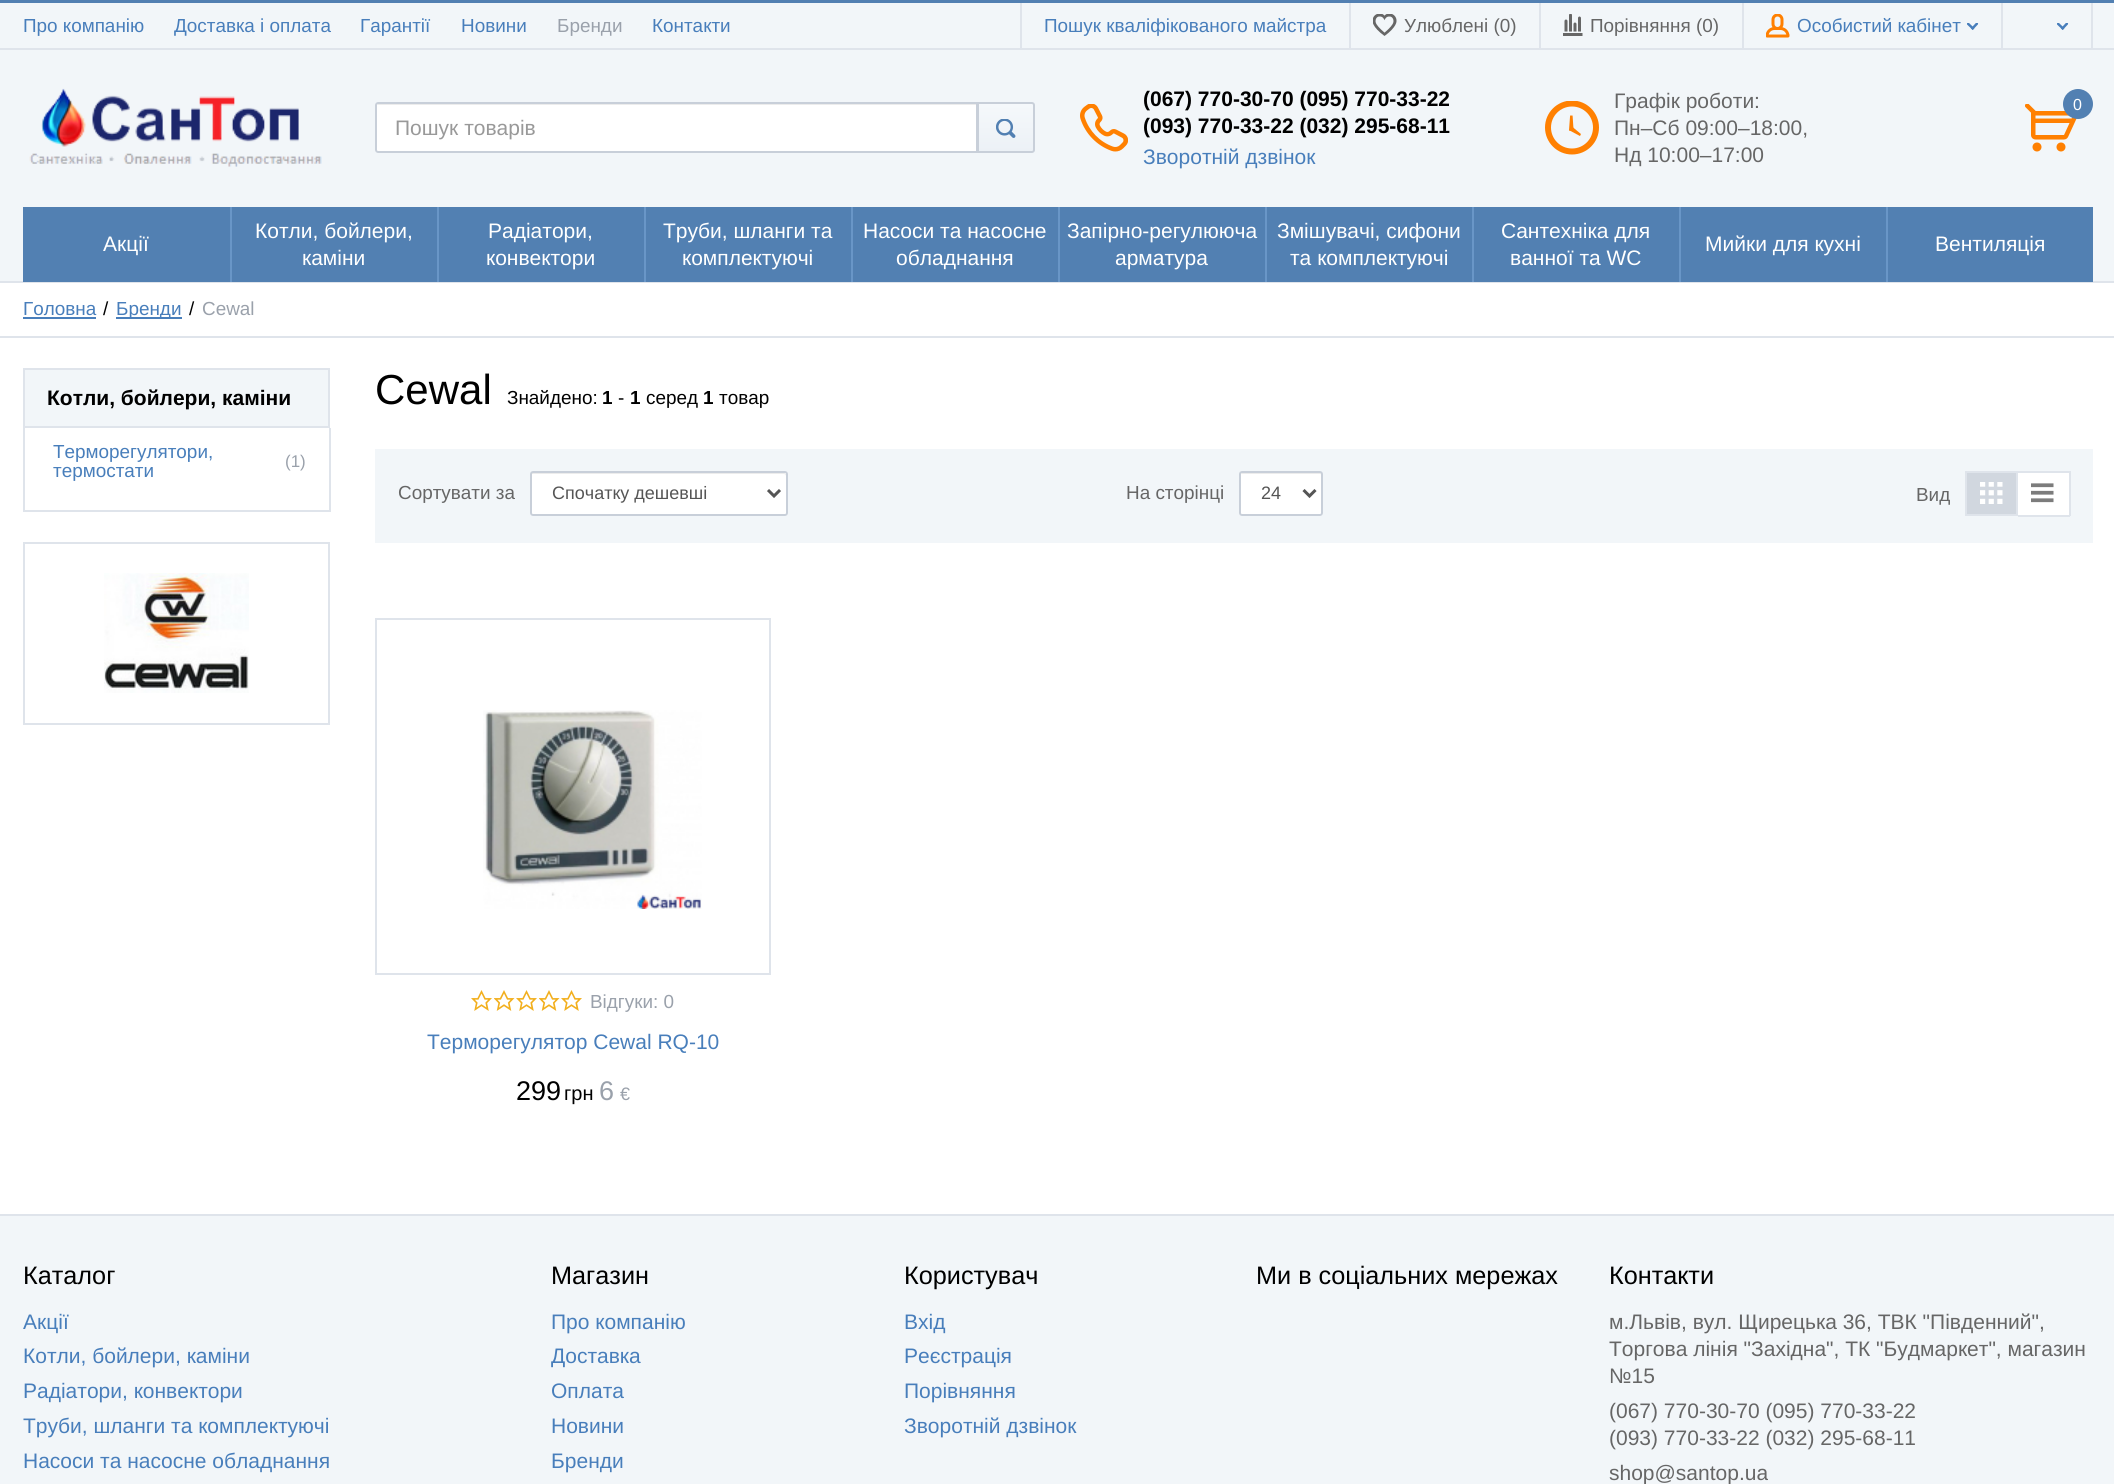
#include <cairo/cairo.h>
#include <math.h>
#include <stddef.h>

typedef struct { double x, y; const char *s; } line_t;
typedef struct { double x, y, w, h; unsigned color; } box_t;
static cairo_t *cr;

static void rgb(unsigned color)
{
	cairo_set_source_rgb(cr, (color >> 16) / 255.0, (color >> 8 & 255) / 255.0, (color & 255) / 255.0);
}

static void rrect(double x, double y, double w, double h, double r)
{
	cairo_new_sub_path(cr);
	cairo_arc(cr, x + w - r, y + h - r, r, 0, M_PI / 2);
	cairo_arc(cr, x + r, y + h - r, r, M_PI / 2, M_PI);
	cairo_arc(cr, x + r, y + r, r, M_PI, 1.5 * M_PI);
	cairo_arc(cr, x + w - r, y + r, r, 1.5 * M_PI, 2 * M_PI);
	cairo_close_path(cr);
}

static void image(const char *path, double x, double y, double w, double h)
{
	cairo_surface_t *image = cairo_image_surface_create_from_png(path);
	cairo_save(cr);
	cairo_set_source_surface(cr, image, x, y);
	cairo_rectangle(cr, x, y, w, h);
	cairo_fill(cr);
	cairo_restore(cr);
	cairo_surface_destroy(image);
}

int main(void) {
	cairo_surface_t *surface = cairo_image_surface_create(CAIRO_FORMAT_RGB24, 2114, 1484);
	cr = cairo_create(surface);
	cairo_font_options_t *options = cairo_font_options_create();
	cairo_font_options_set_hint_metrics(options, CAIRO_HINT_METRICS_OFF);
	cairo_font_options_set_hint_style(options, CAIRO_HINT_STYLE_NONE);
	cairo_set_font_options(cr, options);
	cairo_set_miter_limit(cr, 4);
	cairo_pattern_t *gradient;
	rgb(0xffffff);
	cairo_paint(cr);
	{
		static const box_t items[] = {
			{0, 3, 2114, 278, 0xf2f6f9},
			{0, 281, 2114, 2, 0xdfe4eb},
			{0, 0, 2114, 3, 0x5280b2},
			{0, 48, 2114, 2, 0xdfe4eb},
			{1349, 3, 2, 45, 0xdfe4eb},
			{1020, 3, 2, 45, 0xdfe4eb},
			{1539, 3, 2, 45, 0xdfe4eb},
		};
		for (size_t i = 0; i < sizeof items / sizeof *items; i++) {
			rgb(items[i].color);
			cairo_rectangle(cr, items[i].x, items[i].y, items[i].w, items[i].h);
			cairo_fill(cr);
		}
	}
	image("img/1.png", 1373, 14, 24, 22);
	cairo_rectangle(cr, 1742, 3, 2, 45);
	cairo_fill(cr);
	image("img/2.png", 1563, 14, 20, 22);
	cairo_rectangle(cr, 2001, 3, 2, 45);
	cairo_fill(cr);
	image("img/3.png", 1766, 14, 24, 24);
	image("img/4.png", 1967, 23, 12, 7);
	cairo_rectangle(cr, 2091, 3, 2, 45);
	cairo_fill(cr);
	image("img/4.png", 2057, 23, 12, 7);
	image("img/5.png", 29, 88, 293, 79);
	image("img/6.png", 1080, 104, 48, 48);
	image("img/7.png", 1545, 101, 54, 54);
	image("img/8.png", 2025, 104, 52, 48);
	rgb(0x5280b2);
	cairo_arc(cr, 2078, 104, 15, 0, 2 * M_PI);
	cairo_fill(cr);
	rgb(0xffffff);
	cairo_new_path(cr);
	cairo_move_to(cr, 378, 102);
	cairo_line_to(cr, 978, 102);
	cairo_line_to(cr, 978, 153);
	cairo_line_to(cr, 378, 153);
	cairo_curve_to(cr, 376.5, 153, 375, 151.5, 375, 150);
	cairo_line_to(cr, 375, 105);
	cairo_curve_to(cr, 375, 103.5, 376.5, 102, 378, 102);
	cairo_close_path(cr);
	cairo_fill(cr);
	rgb(0xececec);
	cairo_new_path(cr);
	cairo_move_to(cr, 378, 105);
	cairo_line_to(cr, 976, 105);
	cairo_line_to(cr, 976, 152);
	cairo_line_to(cr, 977, 152);
	cairo_line_to(cr, 977, 104);
	cairo_line_to(cr, 378, 104);
	cairo_curve_to(cr, 378, 104, 377, 105, 377, 105);
	cairo_close_path(cr);
	cairo_fill(cr);
	cairo_new_path(cr);
	cairo_move_to(cr, 378, 103);
	cairo_line_to(cr, 977, 103);
	cairo_line_to(cr, 977, 152);
	cairo_line_to(cr, 378, 152);
	cairo_curve_to(cr, 377, 152, 376, 151, 376, 150);
	cairo_line_to(cr, 376, 105);
	cairo_curve_to(cr, 376, 104, 377, 103, 378, 103);
	cairo_close_path(cr);
	rgb(0xc8cfd9);
	cairo_stroke(cr);
	cairo_save(cr);
	cairo_new_path(cr);
	cairo_move_to(cr, 977, 102);
	cairo_line_to(cr, 1032, 102);
	cairo_curve_to(cr, 1033.5, 102, 1035, 103.5, 1035, 105);
	cairo_line_to(cr, 1035, 150);
	cairo_curve_to(cr, 1035, 151.5, 1033.5, 153, 1032, 153);
	cairo_line_to(cr, 977, 153);
	cairo_close_path(cr);
	cairo_clip(cr);
	gradient = cairo_pattern_create_linear(1006, 104, 1006, 152);
	cairo_pattern_add_color_stop_rgba(gradient, 0, 0.961, 0.973, 0.984, 1);
	cairo_pattern_add_color_stop_rgba(gradient, 1, 0.925, 0.945, 0.965, 1);
	cairo_set_source(cr, gradient);
	cairo_pattern_destroy(gradient);
	cairo_rectangle(cr, 979, 104, 56, 48);
	cairo_fill(cr);
	cairo_restore(cr);
	cairo_new_path(cr);
	cairo_move_to(cr, 978, 103);
	cairo_line_to(cr, 1032, 103);
	cairo_curve_to(cr, 1033, 103, 1034, 104, 1034, 105);
	cairo_line_to(cr, 1034, 150);
	cairo_curve_to(cr, 1034, 151, 1033, 152, 1032, 152);
	cairo_line_to(cr, 978, 152);
	cairo_close_path(cr);
	cairo_stroke(cr);
	image("img/9.png", 996, 119, 20, 19);
	{
		static const box_t items[] = {
			{23, 207, 207, 75, 0x5280b2},
			{232, 207, 205, 75, 0x5280b2},
			{230, 207, 2, 75, 0x6996c7},
			{439, 207, 205, 75, 0x5280b2},
			{437, 207, 2, 75, 0x6996c7},
			{646, 207, 205, 75, 0x5280b2},
			{644, 207, 2, 75, 0x6996c7},
			{853, 207, 205, 75, 0x5280b2},
			{851, 207, 2, 75, 0x6996c7},
			{1060, 207, 205, 75, 0x5280b2},
			{1058, 207, 2, 75, 0x6996c7},
			{1267, 207, 205, 75, 0x5280b2},
			{1265, 207, 2, 75, 0x6996c7},
			{1474, 207, 205, 75, 0x5280b2},
			{1472, 207, 2, 75, 0x6996c7},
			{1681, 207, 205, 75, 0x5280b2},
			{1679, 207, 2, 75, 0x6996c7},
			{1888, 207, 205, 75, 0x5280b2},
			{1886, 207, 2, 75, 0x6996c7},
			{0, 336, 2114, 2, 0xdfe4eb},
			{23, 317, 73, 2, 0x487ebb},
			{116, 317, 66, 2, 0x487ebb},
		};
		for (size_t i = 0; i < sizeof items / sizeof *items; i++) {
			rgb(items[i].color);
			cairo_rectangle(cr, items[i].x, items[i].y, items[i].w, items[i].h);
			cairo_fill(cr);
		}
	}
	rgb(0xf2f6f9);
	cairo_rectangle(cr, 24, 369, 305, 58);
	cairo_fill_preserve(cr);
	rgb(0xdfe4eb);
	cairo_stroke(cr);
	{
		static const box_t items[] = {
			{329, 428, 2, 84, 0xdfe4eb},
			{23, 510, 307, 2, 0xdfe4eb},
			{23, 428, 2, 84, 0xdfe4eb},
		};
		for (size_t i = 0; i < sizeof items / sizeof *items; i++) {
			rgb(items[i].color);
			cairo_rectangle(cr, items[i].x, items[i].y, items[i].w, items[i].h);
			cairo_fill(cr);
		}
	}
	cairo_rectangle(cr, 24, 543, 305, 181);
	cairo_stroke(cr);
	image("img/10.png", 104, 573, 145, 120);
	rgb(0xf2f6f9);
	cairo_rectangle(cr, 375, 449, 1718, 94);
	cairo_fill(cr);
	rgb(0xffffff);
	rrect(530, 471, 258, 45, 3);
	cairo_fill(cr);
	rgb(0xececec);
	cairo_new_path(cr);
	cairo_move_to(cr, 532, 474);
	cairo_line_to(cr, 784, 474);
	cairo_curve_to(cr, 785, 474, 786, 475, 786, 476);
	cairo_line_to(cr, 786, 474);
	cairo_curve_to(cr, 786, 474, 785, 473, 784, 473);
	cairo_line_to(cr, 532, 473);
	cairo_curve_to(cr, 532, 473, 531, 474, 531, 474);
	cairo_line_to(cr, 531, 476);
	cairo_close_path(cr);
	cairo_fill(cr);
	rrect(531, 472, 256, 43, 2);
	rgb(0xc8cfd9);
	cairo_stroke(cr);
	cairo_new_path(cr);
	cairo_move_to(cr, 768, 490);
	cairo_line_to(cr, 774, 496);
	cairo_line_to(cr, 780, 490);
	rgb(0x555555);
	cairo_set_line_width(cr, 3);
	cairo_stroke(cr);
	rgb(0xffffff);
	rrect(1239, 471, 84, 45, 3);
	cairo_fill(cr);
	rgb(0xececec);
	cairo_new_path(cr);
	cairo_move_to(cr, 1242, 474);
	cairo_line_to(cr, 1320, 474);
	cairo_curve_to(cr, 1321, 474, 1322, 475, 1322, 476);
	cairo_line_to(cr, 1322, 474);
	cairo_curve_to(cr, 1322, 474, 1321, 473, 1320, 473);
	cairo_line_to(cr, 1242, 473);
	cairo_curve_to(cr, 1242, 473, 1241, 474, 1241, 474);
	cairo_close_path(cr);
	cairo_fill(cr);
	rrect(1240, 472, 82, 43, 2);
	rgb(0xc8cfd9);
	cairo_set_line_width(cr, 2);
	cairo_stroke(cr);
	cairo_new_path(cr);
	cairo_move_to(cr, 1303.5, 490);
	cairo_line_to(cr, 1309.5, 496);
	cairo_line_to(cr, 1315.5, 490);
	rgb(0x555555);
	cairo_set_line_width(cr, 3);
	cairo_stroke(cr);
	rgb(0xd1d7df);
	cairo_rectangle(cr, 1966, 472, 51, 43);
	cairo_fill_preserve(cr);
	rgb(0xdfe4eb);
	cairo_set_line_width(cr, 2);
	cairo_stroke(cr);
	image("img/11.png", 1980, 482, 23, 22);
	{
		static const box_t items[] = {
			{2018, 473, 51, 42, 0xffffff},
			{2018, 471, 52, 2, 0xdfe4eb},
			{2069, 471, 2, 45, 0xdfe4eb},
			{2018, 515, 52, 2, 0xdfe4eb},
		};
		for (size_t i = 0; i < sizeof items / sizeof *items; i++) {
			rgb(items[i].color);
			cairo_rectangle(cr, items[i].x, items[i].y, items[i].w, items[i].h);
			cairo_fill(cr);
		}
	}
	image("img/12.png", 2031, 483, 23, 20);
	cairo_rectangle(cr, 376, 619, 394, 355);
	cairo_stroke(cr);
	image("img/13.png", 483, 710, 219, 199);
	image("img/14.png", 471, 990, 21, 21);
	image("img/15.png", 494, 990, 21, 21);
	image("img/14.png", 516, 990, 21, 21);
	image("img/15.png", 539, 990, 21, 21);
	image("img/14.png", 561, 990, 21, 21);
	rgb(0xf2f6f9);
	cairo_rectangle(cr, 0, 1216, 2114, 268);
	cairo_fill(cr);
	rgb(0xdfe4eb);
	cairo_rectangle(cr, 0, 1214, 2114, 2);
	cairo_fill(cr);
	cairo_select_font_face(cr, "Liberation Sans", CAIRO_FONT_SLANT_NORMAL, CAIRO_FONT_WEIGHT_NORMAL);
	cairo_set_font_size(cr, 18.9);
	rgb(0x487ebb);
	{
		static const line_t items[] = {
			{23, 32, "Про компанію"},
			{174, 32, "Доставка і оплата"},
			{360, 32, "Гарантії"},
			{461, 32, "Новини"},
		};
		for (size_t i = 0; i < sizeof items / sizeof *items; i++) {
			cairo_move_to(cr, items[i].x, items[i].y);
			cairo_show_text(cr, items[i].s);
		}
	}
	rgb(0x9aa1ab);
	cairo_move_to(cr, 557, 32);
	cairo_show_text(cr, "Бренди");
	rgb(0x487ebb);
	cairo_move_to(cr, 652, 32);
	cairo_show_text(cr, "Контакти");
	cairo_move_to(cr, 1044, 32);
	cairo_show_text(cr, "Пошук кваліфікованого майстра");
	rgb(0x666666);
	cairo_move_to(cr, 1404, 32);
	cairo_show_text(cr, "Улюблені (0)");
	cairo_move_to(cr, 1590, 32);
	cairo_show_text(cr, "Порівняння (0)");
	rgb(0x487ebb);
	cairo_move_to(cr, 1797, 32);
	cairo_show_text(cr, "Особистий кабінет");
	cairo_select_font_face(cr, "Liberation Sans", CAIRO_FONT_SLANT_NORMAL, CAIRO_FONT_WEIGHT_BOLD);
	cairo_set_font_size(cr, 21);
	rgb(0x000000);
	cairo_move_to(cr, 1143, 106);
	cairo_show_text(cr, "(067) 770-30-70 (095) 770-33-22");
	cairo_move_to(cr, 1143, 133);
	cairo_show_text(cr, "(093) 770-33-22 (032) 295-68-11");
	cairo_select_font_face(cr, "Liberation Sans", CAIRO_FONT_SLANT_NORMAL, CAIRO_FONT_WEIGHT_NORMAL);
	rgb(0x487ebb);
	cairo_move_to(cr, 1143, 164);
	cairo_show_text(cr, "Зворотній дзвінок");
	rgb(0x666666);
	{
		static const line_t items[] = {
			{1614, 108, "Графік роботи:"},
			{1614, 135, "Пн–Сб 09:00–18:00,"},
			{1614, 162, "Нд 10:00–17:00"},
		};
		for (size_t i = 0; i < sizeof items / sizeof *items; i++) {
			cairo_move_to(cr, items[i].x, items[i].y);
			cairo_show_text(cr, items[i].s);
		}
	}
	cairo_set_font_size(cr, 16);
	rgb(0xffffff);
	cairo_move_to(cr, 2073, 110);
	cairo_show_text(cr, "0");
	cairo_set_font_size(cr, 21);
	rgb(0x999999);
	cairo_move_to(cr, 395, 135);
	cairo_show_text(cr, "Пошук товарів");
	rgb(0xffffff);
	{
		static const line_t items[] = {
			{103, 251, "Акції"},
			{255, 238, "Котли, бойлери,"},
			{302, 265, "каміни"},
			{488, 238, "Радіатори,"},
			{486, 265, "конвектори"},
			{663, 238, "Труби, шланги та"},
			{682, 265, "комплектуючі"},
			{863, 238, "Насоси та насосне"},
			{896, 265, "обладнання"},
			{1067, 238, "Запірно-регулююча"},
			{1115, 265, "арматура"},
			{1277, 238, "Змішувачі, сифони"},
			{1290, 265, "та комплектуючі"},
			{1501, 238, "Сантехніка для"},
			{1510, 265, "ванної та WC"},
			{1705, 251, "Мийки для кухні"},
			{1935, 251, "Вентиляція"},
		};
		for (size_t i = 0; i < sizeof items / sizeof *items; i++) {
			cairo_move_to(cr, items[i].x, items[i].y);
			cairo_show_text(cr, items[i].s);
		}
	}
	cairo_set_font_size(cr, 18.9);
	rgb(0x487ebb);
	cairo_move_to(cr, 23, 315);
	cairo_show_text(cr, "Головна");
	rgb(0x000000);
	cairo_move_to(cr, 103, 315);
	cairo_show_text(cr, "/");
	rgb(0x487ebb);
	cairo_move_to(cr, 116, 315);
	cairo_show_text(cr, "Бренди");
	rgb(0x000000);
	cairo_move_to(cr, 189, 315);
	cairo_show_text(cr, "/");
	rgb(0x9aa1ab);
	cairo_move_to(cr, 202, 315);
	cairo_show_text(cr, "Cewal");
	cairo_select_font_face(cr, "Liberation Sans", CAIRO_FONT_SLANT_NORMAL, CAIRO_FONT_WEIGHT_BOLD);
	cairo_set_font_size(cr, 21);
	rgb(0x000000);
	cairo_move_to(cr, 47, 405);
	cairo_show_text(cr, "Котли, бойлери, каміни");
	cairo_select_font_face(cr, "Liberation Sans", CAIRO_FONT_SLANT_NORMAL, CAIRO_FONT_WEIGHT_NORMAL);
	cairo_set_font_size(cr, 18.9);
	rgb(0x487ebb);
	cairo_move_to(cr, 53, 458);
	cairo_show_text(cr, "Терморегулятори,");
	cairo_move_to(cr, 53, 477);
	cairo_show_text(cr, "термостати");
	cairo_set_font_size(cr, 17);
	rgb(0x9aa1ab);
	cairo_move_to(cr, 285, 467);
	cairo_show_text(cr, "(1)");
	cairo_set_font_size(cr, 42);
	rgb(0x000000);
	cairo_move_to(cr, 375, 404);
	cairo_show_text(cr, "Cewal");
	cairo_set_font_size(cr, 18.9);
	cairo_move_to(cr, 507, 404);
	cairo_show_text(cr, "Знайдено:");
	cairo_select_font_face(cr, "Liberation Sans", CAIRO_FONT_SLANT_NORMAL, CAIRO_FONT_WEIGHT_BOLD);
	cairo_move_to(cr, 602, 404);
	cairo_show_text(cr, "1");
	cairo_select_font_face(cr, "Liberation Sans", CAIRO_FONT_SLANT_NORMAL, CAIRO_FONT_WEIGHT_NORMAL);
	cairo_move_to(cr, 618, 404);
	cairo_show_text(cr, "-");
	cairo_select_font_face(cr, "Liberation Sans", CAIRO_FONT_SLANT_NORMAL, CAIRO_FONT_WEIGHT_BOLD);
	cairo_move_to(cr, 630, 404);
	cairo_show_text(cr, "1");
	cairo_select_font_face(cr, "Liberation Sans", CAIRO_FONT_SLANT_NORMAL, CAIRO_FONT_WEIGHT_NORMAL);
	cairo_move_to(cr, 646, 404);
	cairo_show_text(cr, "серед");
	cairo_select_font_face(cr, "Liberation Sans", CAIRO_FONT_SLANT_NORMAL, CAIRO_FONT_WEIGHT_BOLD);
	cairo_move_to(cr, 703, 404);
	cairo_show_text(cr, "1");
	cairo_select_font_face(cr, "Liberation Sans", CAIRO_FONT_SLANT_NORMAL, CAIRO_FONT_WEIGHT_NORMAL);
	cairo_move_to(cr, 719, 404);
	cairo_show_text(cr, "товар");
	rgb(0x666666);
	cairo_move_to(cr, 398, 499);
	cairo_show_text(cr, "Сортувати за");
	cairo_set_font_size(cr, 18);
	rgb(0x555555);
	cairo_move_to(cr, 552, 499);
	cairo_show_text(cr, "Спочатку дешевші");
	cairo_set_font_size(cr, 18.9);
	rgb(0x666666);
	cairo_move_to(cr, 1126, 499);
	cairo_show_text(cr, "На сторінці");
	cairo_set_font_size(cr, 18);
	rgb(0x555555);
	cairo_move_to(cr, 1261, 499);
	cairo_show_text(cr, "24");
	cairo_set_font_size(cr, 18.9);
	rgb(0x666666);
	cairo_move_to(cr, 1916, 501);
	cairo_show_text(cr, "Вид");
	rgb(0x9aa1ab);
	cairo_move_to(cr, 590, 1008);
	cairo_show_text(cr, "Відгуки: 0");
	cairo_set_font_size(cr, 21);
	rgb(0x487ebb);
	cairo_move_to(cr, 427, 1049);
	cairo_show_text(cr, "Терморегулятор Cewal RQ-10");
	cairo_set_font_size(cr, 27);
	rgb(0x000000);
	cairo_move_to(cr, 516, 1100);
	cairo_show_text(cr, "299");
	cairo_set_font_size(cr, 20);
	cairo_move_to(cr, 564, 1100);
	cairo_show_text(cr, "грн");
	cairo_set_font_size(cr, 27);
	rgb(0x9aa1ab);
	cairo_move_to(cr, 599, 1100);
	cairo_show_text(cr, "6");
	cairo_set_font_size(cr, 18);
	cairo_move_to(cr, 620, 1100);
	cairo_show_text(cr, "€");
	cairo_set_font_size(cr, 25.25);
	rgb(0x000000);
	cairo_move_to(cr, 23, 1284);
	cairo_show_text(cr, "Каталог");
	cairo_set_font_size(cr, 21);
	rgb(0x487ebb);
	{
		static const line_t items[] = {
			{23, 1329, "Акції"},
			{23, 1363, "Котли, бойлери, каміни"},
			{23, 1398, "Радіатори, конвектори"},
			{23, 1433, "Труби, шланги та комплектуючі"},
			{23, 1468, "Насоси та насосне обладнання"},
		};
		for (size_t i = 0; i < sizeof items / sizeof *items; i++) {
			cairo_move_to(cr, items[i].x, items[i].y);
			cairo_show_text(cr, items[i].s);
		}
	}
	cairo_set_font_size(cr, 25.25);
	rgb(0x000000);
	cairo_move_to(cr, 551, 1284);
	cairo_show_text(cr, "Магазин");
	cairo_set_font_size(cr, 21);
	rgb(0x487ebb);
	{
		static const line_t items[] = {
			{551, 1329, "Про компанію"},
			{551, 1363, "Доставка"},
			{551, 1398, "Оплата"},
			{551, 1433, "Новини"},
			{551, 1468, "Бренди"},
		};
		for (size_t i = 0; i < sizeof items / sizeof *items; i++) {
			cairo_move_to(cr, items[i].x, items[i].y);
			cairo_show_text(cr, items[i].s);
		}
	}
	cairo_set_font_size(cr, 25.25);
	rgb(0x000000);
	cairo_move_to(cr, 904, 1284);
	cairo_show_text(cr, "Користувач");
	cairo_set_font_size(cr, 21);
	rgb(0x487ebb);
	{
		static const line_t items[] = {
			{904, 1329, "Вхід"},
			{904, 1363, "Реєстрація"},
			{904, 1398, "Порівняння"},
			{904, 1433, "Зворотній дзвінок"},
		};
		for (size_t i = 0; i < sizeof items / sizeof *items; i++) {
			cairo_move_to(cr, items[i].x, items[i].y);
			cairo_show_text(cr, items[i].s);
		}
	}
	cairo_set_font_size(cr, 25.25);
	rgb(0x000000);
	cairo_move_to(cr, 1256, 1284);
	cairo_show_text(cr, "Ми в соціальних мережах");
	cairo_move_to(cr, 1609, 1284);
	cairo_show_text(cr, "Контакти");
	cairo_set_font_size(cr, 21);
	rgb(0x666666);
	{
		static const line_t items[] = {
			{1609, 1329, "м.Львів, вул. Щирецька 36, ТВК \"Південний\","},
			{1609, 1356, "Торгова лінія \"Західна\", ТК \"Будмаркет\", магазин"},
			{1609, 1383, "№15"},
			{1609, 1418, "(067) 770-30-70 (095) 770-33-22"},
			{1609, 1445, "(093) 770-33-22 (032) 295-68-11"},
			{1609, 1480, "shop@santop.ua"},
		};
		for (size_t i = 0; i < sizeof items / sizeof *items; i++) {
			cairo_move_to(cr, items[i].x, items[i].y);
			cairo_show_text(cr, items[i].s);
		}
	}
	cairo_surface_write_to_png(surface, "page.png");
	cairo_font_options_destroy(options);
	cairo_destroy(cr);
	cairo_surface_destroy(surface);
	return 0;
}
